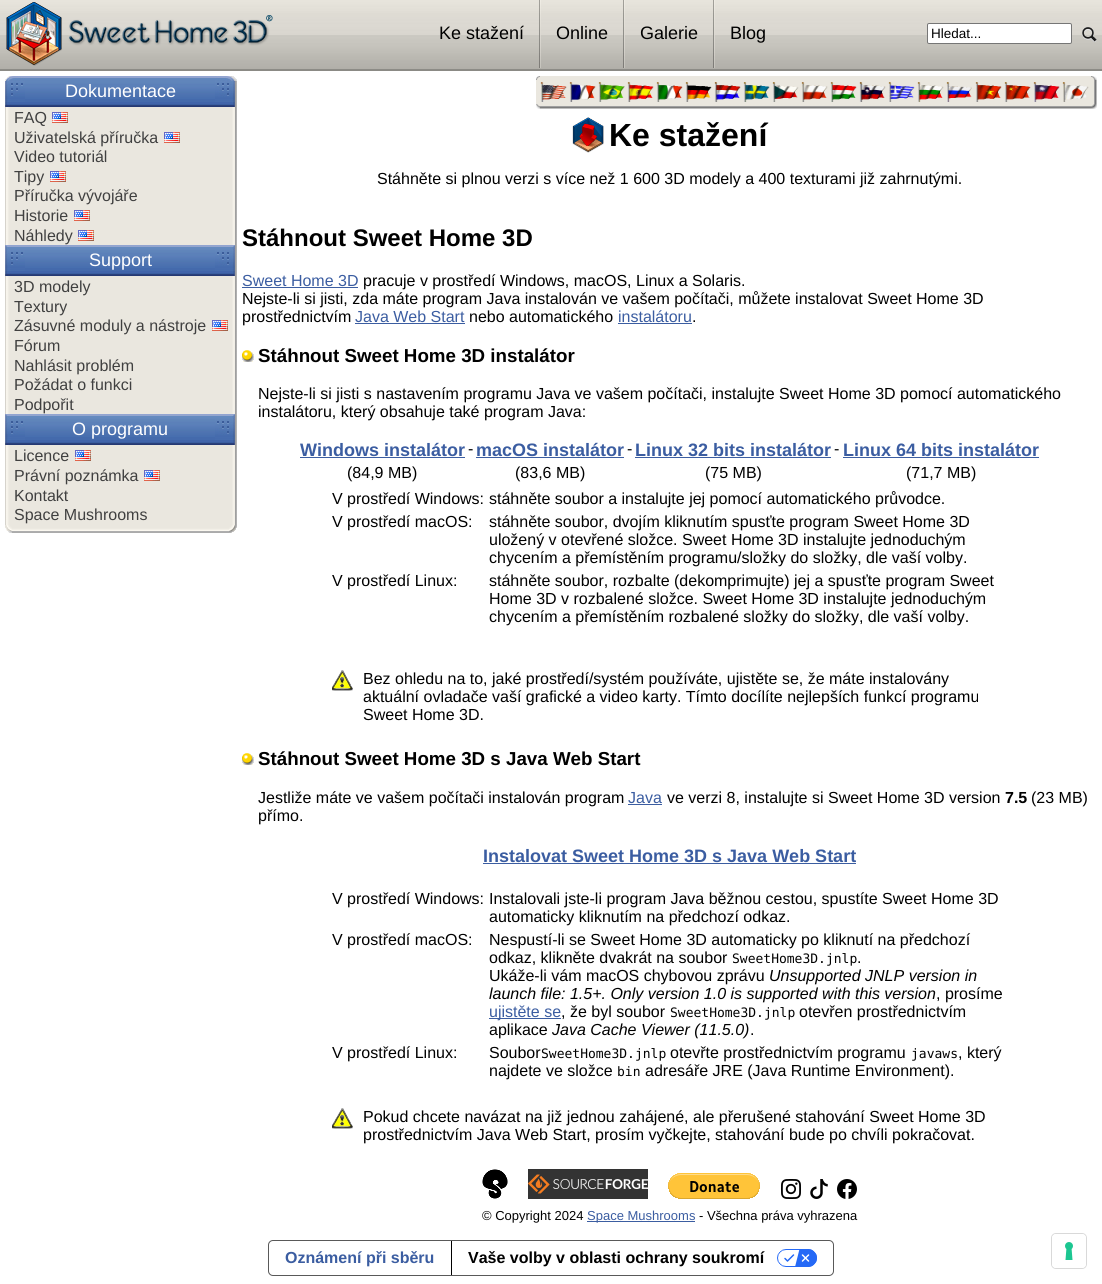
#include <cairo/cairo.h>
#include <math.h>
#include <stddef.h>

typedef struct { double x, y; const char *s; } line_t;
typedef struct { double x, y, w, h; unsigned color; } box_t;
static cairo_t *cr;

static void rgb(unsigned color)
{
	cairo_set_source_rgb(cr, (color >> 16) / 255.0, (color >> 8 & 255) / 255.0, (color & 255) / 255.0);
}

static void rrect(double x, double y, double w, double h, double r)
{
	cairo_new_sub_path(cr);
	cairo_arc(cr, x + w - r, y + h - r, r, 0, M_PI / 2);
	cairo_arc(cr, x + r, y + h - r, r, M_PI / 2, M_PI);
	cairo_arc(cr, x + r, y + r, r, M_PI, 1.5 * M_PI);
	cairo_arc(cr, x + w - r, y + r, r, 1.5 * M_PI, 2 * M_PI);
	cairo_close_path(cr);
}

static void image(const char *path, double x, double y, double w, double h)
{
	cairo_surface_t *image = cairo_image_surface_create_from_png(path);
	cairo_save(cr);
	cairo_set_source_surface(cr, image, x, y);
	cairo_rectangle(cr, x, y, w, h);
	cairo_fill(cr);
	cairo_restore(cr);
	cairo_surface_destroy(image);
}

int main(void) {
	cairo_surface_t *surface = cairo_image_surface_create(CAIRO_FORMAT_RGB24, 1102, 1284);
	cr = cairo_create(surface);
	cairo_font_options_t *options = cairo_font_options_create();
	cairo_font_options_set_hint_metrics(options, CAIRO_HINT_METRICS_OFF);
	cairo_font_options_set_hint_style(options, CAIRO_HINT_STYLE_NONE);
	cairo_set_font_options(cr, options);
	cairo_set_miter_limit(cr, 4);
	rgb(0xffffff);
	cairo_paint(cr);
	image("img/1.png", 0, 0, 1102, 71);
	image("img/2.png", 6, 2, 267, 64);
	image("img/3.png", 539, 0, 2, 68);
	image("img/3.png", 623, 0, 2, 68);
	image("img/3.png", 713, 0, 2, 68);
	rgb(0xffffff);
	rrect(927.5, 23.5, 144, 20, 1.5);
	cairo_fill_preserve(cr);
	rgb(0x767676);
	cairo_set_line_width(cr, 1);
	cairo_stroke(cr);
	image("img/4.png", 1082, 27, 15, 15);
	image("img/5.png", 5, 76, 20, 5);
	image("img/6.png", 25, 76, 190, 5);
	image("img/7.png", 215, 76, 22, 5);
	image("img/8.png", 5, 97, 20, 5);
	image("img/9.png", 5, 81, 20, 16);
	rgb(0x446aac);
	cairo_rectangle(cr, 25, 99, 190, 3);
	cairo_fill(cr);
	image("img/10.png", 25, 81, 190, 18);
	image("img/11.png", 27, 81, 187, 18);
	image("img/12.png", 65, 81, 111, 18);
	image("img/13.png", 215, 81, 22, 21);
	image("img/14.png", 215, 81, 20, 16);
	image("img/15.png", 5, 102, 20, 5);
	image("img/16.png", 25, 102, 190, 5);
	image("img/17.png", 215, 102, 22, 5);
	image("img/18.png", 5, 107, 7, 138);
	rgb(0xeae7df);
	cairo_rectangle(cr, 12, 107, 217, 138);
	cairo_fill(cr);
	image("img/19.png", 52, 112, 16, 11);
	image("img/19.png", 164, 132, 16, 11);
	image("img/19.png", 50, 171, 16, 11);
	image("img/19.png", 74, 210, 16, 11);
	image("img/19.png", 78, 230, 16, 11);
	image("img/20.png", 229, 107, 8, 138);
	image("img/21.png", 5, 245, 20, 5);
	image("img/22.png", 25, 245, 190, 5);
	image("img/23.png", 215, 245, 22, 5);
	image("img/8.png", 5, 266, 20, 5);
	image("img/9.png", 5, 250, 20, 16);
	rgb(0x446aac);
	cairo_rectangle(cr, 25, 268, 190, 3);
	cairo_fill(cr);
	image("img/10.png", 25, 250, 190, 18);
	image("img/11.png", 27, 250, 187, 18);
	image("img/13.png", 215, 250, 22, 21);
	image("img/14.png", 215, 250, 20, 16);
	image("img/15.png", 5, 271, 20, 5);
	image("img/16.png", 25, 271, 190, 5);
	image("img/17.png", 215, 271, 22, 5);
	image("img/18.png", 5, 276, 7, 138);
	rgb(0xeae7df);
	cairo_rectangle(cr, 12, 276, 217, 138);
	cairo_fill(cr);
	image("img/19.png", 212, 320, 16, 11);
	image("img/20.png", 229, 276, 8, 138);
	image("img/21.png", 5, 414, 20, 5);
	image("img/22.png", 25, 414, 190, 5);
	image("img/23.png", 215, 414, 22, 5);
	image("img/8.png", 5, 435, 20, 5);
	image("img/9.png", 5, 419, 20, 16);
	rgb(0x446aac);
	cairo_rectangle(cr, 25, 437, 190, 3);
	cairo_fill(cr);
	image("img/10.png", 25, 419, 190, 18);
	image("img/11.png", 27, 419, 187, 18);
	image("img/13.png", 215, 419, 22, 21);
	image("img/14.png", 215, 419, 20, 16);
	image("img/15.png", 5, 440, 20, 5);
	image("img/16.png", 25, 440, 190, 5);
	image("img/17.png", 215, 440, 22, 5);
	image("img/24.png", 5, 445, 7, 80);
	rgb(0xeae7df);
	cairo_rectangle(cr, 12, 445, 217, 80);
	cairo_fill(cr);
	image("img/19.png", 75, 450, 16, 11);
	image("img/19.png", 144, 470, 16, 11);
	image("img/25.png", 229, 445, 8, 80);
	image("img/26.png", 5, 525, 7, 8);
	image("img/27.png", 12, 525, 217, 8);
	image("img/28.png", 229, 525, 8, 8);
	image("img/29.png", 536, 76, 4, 4);
	cairo_rectangle(cr, 540, 76, 551, 4);
	cairo_fill(cr);
	image("img/30.png", 1091, 76, 6, 4);
	cairo_rectangle(cr, 536, 80, 555, 24);
	cairo_fill(cr);
	image("img/31.png", 1091, 80, 6, 24);
	image("img/32.png", 540, 82, 27, 20);
	image("img/33.png", 569, 82, 27, 20);
	image("img/34.png", 598, 82, 27, 20);
	image("img/35.png", 627, 82, 27, 20);
	image("img/36.png", 656, 82, 27, 20);
	image("img/37.png", 685, 82, 27, 20);
	image("img/38.png", 714, 82, 27, 20);
	image("img/39.png", 743, 82, 27, 20);
	image("img/40.png", 772, 82, 27, 20);
	image("img/41.png", 801, 82, 27, 20);
	image("img/42.png", 830, 82, 27, 20);
	image("img/43.png", 859, 82, 27, 20);
	image("img/44.png", 888, 82, 27, 20);
	image("img/45.png", 917, 82, 27, 20);
	image("img/46.png", 946, 82, 26, 20);
	image("img/47.png", 975, 82, 27, 20);
	image("img/48.png", 1004, 82, 27, 20);
	image("img/49.png", 1033, 82, 27, 20);
	image("img/50.png", 1062, 82, 27, 20);
	image("img/51.png", 536, 104, 4, 5);
	image("img/52.png", 540, 104, 551, 5);
	image("img/53.png", 1091, 104, 6, 5);
	image("img/54.png", 572, 117, 32, 36);
	{
		static const box_t items[] = {
			{242, 287, 116, 1, 0x3b5da1},
			{355, 323, 110, 1, 0x3b5da1},
			{618, 323, 74, 1, 0x3b5da1},
		};
		for (size_t i = 0; i < sizeof items / sizeof *items; i++) {
			rgb(items[i].color);
			cairo_rectangle(cr, items[i].x, items[i].y, items[i].w, items[i].h);
			cairo_fill(cr);
		}
	}
	image("img/55.png", 242, 350, 12, 12);
	{
		static const box_t items[] = {
			{300, 457, 165, 1, 0x3b5da1},
			{476, 457, 148, 1, 0x3b5da1},
			{635, 457, 196, 1, 0x3b5da1},
			{843, 457, 196, 1, 0x3b5da1},
		};
		for (size_t i = 0; i < sizeof items / sizeof *items; i++) {
			rgb(items[i].color);
			cairo_rectangle(cr, items[i].x, items[i].y, items[i].w, items[i].h);
			cairo_fill(cr);
		}
	}
	image("img/56.png", 332, 670, 21, 21);
	image("img/55.png", 242, 753, 12, 12);
	{
		static const box_t items[] = {
			{628, 804, 34, 1, 0x3b5da1},
			{483, 863, 373, 1, 0x3b5da1},
			{489, 1018, 72, 1, 0x3b5da1},
		};
		for (size_t i = 0; i < sizeof items / sizeof *items; i++) {
			rgb(items[i].color);
			cairo_rectangle(cr, items[i].x, items[i].y, items[i].w, items[i].h);
			cairo_fill(cr);
		}
	}
	image("img/56.png", 332, 1108, 21, 21);
	image("img/57.png", 482, 1169, 26, 30);
	image("img/58.png", 528, 1169, 120, 30);
	image("img/59.png", 668, 1173, 92, 26);
	image("img/60.png", 781, 1179, 20, 20);
	image("img/61.png", 810, 1179, 18, 20);
	image("img/62.png", 837, 1179, 20, 20);
	cairo_rectangle(cr, 587, 1221, 108, 1);
	cairo_fill(cr);
	rrect(268.5, 1240.5, 565, 35, 4.5);
	rgb(0x595959);
	cairo_stroke(cr);
	rgb(0x000000);
	cairo_rectangle(cr, 451, 1241, 1, 34);
	cairo_fill(cr);
	image("img/63.png", 777, 1249, 40, 18);
	rrect(1051.5, 1233.5, 35, 35, 4.5);
	rgb(0xd9d9d9);
	cairo_stroke(cr);
	rgb(0xffffff);
	rrect(1052, 1234, 34, 34, 4);
	cairo_fill(cr);
	image("img/64.png", 1065, 1242, 8, 18);
	cairo_select_font_face(cr, "Liberation Sans", CAIRO_FONT_SLANT_NORMAL, CAIRO_FONT_WEIGHT_NORMAL);
	cairo_set_font_size(cr, 18);
	rgb(0x000000);
	{
		static const line_t items[] = {
			{439, 39, "Ke stažení"},
			{556, 39, "Online"},
			{640, 39, "Galerie"},
			{730, 39, "Blog"},
		};
		for (size_t i = 0; i < sizeof items / sizeof *items; i++) {
			cairo_move_to(cr, items[i].x, items[i].y);
			cairo_show_text(cr, items[i].s);
		}
	}
	cairo_set_font_size(cr, 13.5);
	cairo_move_to(cr, 931, 38);
	cairo_show_text(cr, "Hledat...");
	cairo_set_font_size(cr, 18);
	rgb(0xffffff);
	cairo_move_to(cr, 65, 97);
	cairo_show_text(cr, "Dokumentace");
	cairo_set_font_size(cr, 16);
	rgb(0x404040);
	{
		static const line_t items[] = {
			{14, 123, "FAQ"},
			{14, 143, "Uživatelská příručka"},
			{14, 162, "Video tutoriál"},
			{14, 182, "Tipy"},
			{14, 201, "Příručka vývojáře"},
			{14, 221, "Historie"},
			{14, 241, "Náhledy"},
		};
		for (size_t i = 0; i < sizeof items / sizeof *items; i++) {
			cairo_move_to(cr, items[i].x, items[i].y);
			cairo_show_text(cr, items[i].s);
		}
	}
	cairo_set_font_size(cr, 18);
	rgb(0xffffff);
	cairo_move_to(cr, 89, 266);
	cairo_show_text(cr, "Support");
	cairo_set_font_size(cr, 16);
	rgb(0x404040);
	{
		static const line_t items[] = {
			{14, 292, "3D modely"},
			{14, 312, "Textury"},
			{14, 331, "Zásuvné moduly a nástroje"},
			{14, 351, "Fórum"},
			{14, 371, "Nahlásit problém"},
			{14, 390, "Požádat o funkci"},
			{14, 410, "Podpořit"},
		};
		for (size_t i = 0; i < sizeof items / sizeof *items; i++) {
			cairo_move_to(cr, items[i].x, items[i].y);
			cairo_show_text(cr, items[i].s);
		}
	}
	cairo_set_font_size(cr, 18);
	rgb(0xffffff);
	cairo_move_to(cr, 72, 435);
	cairo_show_text(cr, "O programu");
	cairo_set_font_size(cr, 16);
	rgb(0x404040);
	{
		static const line_t items[] = {
			{14, 461, "Licence"},
			{14, 481, "Právní poznámka"},
			{14, 501, "Kontakt"},
			{14, 520, "Space Mushrooms"},
		};
		for (size_t i = 0; i < sizeof items / sizeof *items; i++) {
			cairo_move_to(cr, items[i].x, items[i].y);
			cairo_show_text(cr, items[i].s);
		}
	}
	cairo_select_font_face(cr, "Liberation Sans", CAIRO_FONT_SLANT_NORMAL, CAIRO_FONT_WEIGHT_BOLD);
	cairo_set_font_size(cr, 32);
	rgb(0x000000);
	cairo_move_to(cr, 609, 146);
	cairo_show_text(cr, "Ke stažení");
	cairo_select_font_face(cr, "Liberation Sans", CAIRO_FONT_SLANT_NORMAL, CAIRO_FONT_WEIGHT_NORMAL);
	cairo_set_font_size(cr, 16);
	cairo_move_to(cr, 377, 184);
	cairo_show_text(cr, "Stáhněte si plnou verzi s více než 1 600 3D modely a 400 texturami již zahrnutými.");
	cairo_select_font_face(cr, "Liberation Sans", CAIRO_FONT_SLANT_NORMAL, CAIRO_FONT_WEIGHT_BOLD);
	cairo_set_font_size(cr, 24);
	cairo_move_to(cr, 242, 246);
	cairo_show_text(cr, "Stáhnout Sweet Home 3D");
	cairo_select_font_face(cr, "Liberation Sans", CAIRO_FONT_SLANT_NORMAL, CAIRO_FONT_WEIGHT_NORMAL);
	cairo_set_font_size(cr, 16);
	rgb(0x3b5da1);
	cairo_move_to(cr, 242, 286);
	cairo_show_text(cr, "Sweet Home 3D");
	rgb(0x000000);
	{
		static const line_t items[] = {
			{363, 286, "pracuje v prostředí Windows, macOS, Linux a Solaris."},
			{242, 304, "Nejste-li si jisti, zda máte program Java instalován ve vašem počítači, můžete instalovat Sweet Home 3D"},
			{242, 322, "prostřednictvím"},
		};
		for (size_t i = 0; i < sizeof items / sizeof *items; i++) {
			cairo_move_to(cr, items[i].x, items[i].y);
			cairo_show_text(cr, items[i].s);
		}
	}
	rgb(0x3b5da1);
	cairo_move_to(cr, 355, 322);
	cairo_show_text(cr, "Java Web Start");
	rgb(0x000000);
	cairo_move_to(cr, 469, 322);
	cairo_show_text(cr, "nebo automatického");
	rgb(0x3b5da1);
	cairo_move_to(cr, 618, 322);
	cairo_show_text(cr, "instalátoru");
	rgb(0x000000);
	cairo_move_to(cr, 692, 322);
	cairo_show_text(cr, ".");
	cairo_select_font_face(cr, "Liberation Sans", CAIRO_FONT_SLANT_NORMAL, CAIRO_FONT_WEIGHT_BOLD);
	cairo_set_font_size(cr, 18.75);
	cairo_move_to(cr, 258, 362);
	cairo_show_text(cr, "Stáhnout Sweet Home 3D instalátor");
	cairo_select_font_face(cr, "Liberation Sans", CAIRO_FONT_SLANT_NORMAL, CAIRO_FONT_WEIGHT_NORMAL);
	cairo_set_font_size(cr, 16);
	cairo_move_to(cr, 258, 399);
	cairo_show_text(cr, "Nejste-li si jisti s nastavením programu Java ve vašem počítači, instalujte Sweet Home 3D pomocí automatického");
	cairo_move_to(cr, 258, 417);
	cairo_show_text(cr, "instalátoru, který obsahuje také program Java:");
	cairo_select_font_face(cr, "Liberation Sans", CAIRO_FONT_SLANT_NORMAL, CAIRO_FONT_WEIGHT_BOLD);
	cairo_set_font_size(cr, 18);
	rgb(0x3b5da1);
	cairo_move_to(cr, 300, 456);
	cairo_show_text(cr, "Windows instalátor");
	cairo_select_font_face(cr, "Liberation Sans", CAIRO_FONT_SLANT_NORMAL, CAIRO_FONT_WEIGHT_NORMAL);
	cairo_set_font_size(cr, 16);
	rgb(0x000000);
	cairo_move_to(cr, 468, 454);
	cairo_show_text(cr, "-");
	cairo_select_font_face(cr, "Liberation Sans", CAIRO_FONT_SLANT_NORMAL, CAIRO_FONT_WEIGHT_BOLD);
	cairo_set_font_size(cr, 18);
	rgb(0x3b5da1);
	cairo_move_to(cr, 476, 456);
	cairo_show_text(cr, "macOS instalátor");
	cairo_select_font_face(cr, "Liberation Sans", CAIRO_FONT_SLANT_NORMAL, CAIRO_FONT_WEIGHT_NORMAL);
	cairo_set_font_size(cr, 16);
	rgb(0x000000);
	cairo_move_to(cr, 627, 454);
	cairo_show_text(cr, "-");
	cairo_select_font_face(cr, "Liberation Sans", CAIRO_FONT_SLANT_NORMAL, CAIRO_FONT_WEIGHT_BOLD);
	cairo_set_font_size(cr, 18);
	rgb(0x3b5da1);
	cairo_move_to(cr, 635, 456);
	cairo_show_text(cr, "Linux 32 bits instalátor");
	cairo_select_font_face(cr, "Liberation Sans", CAIRO_FONT_SLANT_NORMAL, CAIRO_FONT_WEIGHT_NORMAL);
	cairo_set_font_size(cr, 16);
	rgb(0x000000);
	cairo_move_to(cr, 834, 454);
	cairo_show_text(cr, "-");
	cairo_select_font_face(cr, "Liberation Sans", CAIRO_FONT_SLANT_NORMAL, CAIRO_FONT_WEIGHT_BOLD);
	cairo_set_font_size(cr, 18);
	rgb(0x3b5da1);
	cairo_move_to(cr, 843, 456);
	cairo_show_text(cr, "Linux 64 bits instalátor");
	cairo_select_font_face(cr, "Liberation Sans", CAIRO_FONT_SLANT_NORMAL, CAIRO_FONT_WEIGHT_NORMAL);
	cairo_set_font_size(cr, 16);
	rgb(0x000000);
	{
		static const line_t items[] = {
			{347, 478, "(84,9 MB)"},
			{515, 478, "(83,6 MB)"},
			{705, 478, "(75 MB)"},
			{906, 478, "(71,7 MB)"},
			{332, 504, "V prostředí Windows:"},
			{489, 504, "stáhněte soubor a instalujte jej pomocí automatického průvodce."},
			{332, 527, "V prostředí macOS:"},
			{489, 527, "stáhněte soubor, dvojím kliknutím spusťte program Sweet Home 3D"},
			{489, 545, "uložený v otevřené složce. Sweet Home 3D instalujte jednoduchým"},
			{489, 563, "chycením a přemístěním programu/složky do složky, dle vaší volby."},
			{332, 586, "V prostředí Linux:"},
			{489, 586, "stáhněte soubor, rozbalte (dekomprimujte) jej a spusťte program Sweet"},
			{489, 604, "Home 3D v rozbalené složce. Sweet Home 3D instalujte jednoduchým"},
			{489, 622, "chycením a přemístěním rozbalené složky do složky, dle vaší volby."},
			{363, 684, "Bez ohledu na to, jaké prostředí/systém používáte, ujistěte se, že máte instalovány"},
			{363, 702, "aktuální ovladače vaší grafické a video karty. Tímto docílíte nejlepších funkcí programu"},
			{363, 720, "Sweet Home 3D."},
		};
		for (size_t i = 0; i < sizeof items / sizeof *items; i++) {
			cairo_move_to(cr, items[i].x, items[i].y);
			cairo_show_text(cr, items[i].s);
		}
	}
	cairo_select_font_face(cr, "Liberation Sans", CAIRO_FONT_SLANT_NORMAL, CAIRO_FONT_WEIGHT_BOLD);
	cairo_set_font_size(cr, 18.75);
	cairo_move_to(cr, 258, 765);
	cairo_show_text(cr, "Stáhnout Sweet Home 3D s Java Web Start");
	cairo_select_font_face(cr, "Liberation Sans", CAIRO_FONT_SLANT_NORMAL, CAIRO_FONT_WEIGHT_NORMAL);
	cairo_set_font_size(cr, 16);
	cairo_move_to(cr, 258, 803);
	cairo_show_text(cr, "Jestliže máte ve vašem počítači instalován program");
	rgb(0x3b5da1);
	cairo_move_to(cr, 628, 803);
	cairo_show_text(cr, "Java");
	rgb(0x000000);
	cairo_move_to(cr, 667, 803);
	cairo_show_text(cr, "ve verzi 8, instalujte si Sweet Home 3D version");
	cairo_select_font_face(cr, "Liberation Sans", CAIRO_FONT_SLANT_NORMAL, CAIRO_FONT_WEIGHT_BOLD);
	cairo_move_to(cr, 1005, 803);
	cairo_show_text(cr, "7.5");
	cairo_select_font_face(cr, "Liberation Sans", CAIRO_FONT_SLANT_NORMAL, CAIRO_FONT_WEIGHT_NORMAL);
	cairo_move_to(cr, 1031, 803);
	cairo_show_text(cr, "(23 MB)");
	cairo_move_to(cr, 258, 821);
	cairo_show_text(cr, "přímo.");
	cairo_select_font_face(cr, "Liberation Sans", CAIRO_FONT_SLANT_NORMAL, CAIRO_FONT_WEIGHT_BOLD);
	cairo_set_font_size(cr, 18);
	rgb(0x3b5da1);
	cairo_move_to(cr, 483, 862);
	cairo_show_text(cr, "Instalovat Sweet Home 3D s Java Web Start");
	cairo_select_font_face(cr, "Liberation Sans", CAIRO_FONT_SLANT_NORMAL, CAIRO_FONT_WEIGHT_NORMAL);
	cairo_set_font_size(cr, 16);
	rgb(0x000000);
	{
		static const line_t items[] = {
			{332, 904, "V prostředí Windows:"},
			{489, 904, "Instalovali jste-li program Java běžnou cestou, spustíte Sweet Home 3D"},
			{489, 922, "automaticky kliknutím na předchozí odkaz."},
			{332, 945, "V prostředí macOS:"},
			{489, 945, "Nespustí-li se Sweet Home 3D automaticky po kliknutí na předchozí"},
			{489, 963, "odkaz, klikněte dvakrát na soubor"},
		};
		for (size_t i = 0; i < sizeof items / sizeof *items; i++) {
			cairo_move_to(cr, items[i].x, items[i].y);
			cairo_show_text(cr, items[i].s);
		}
	}
	cairo_select_font_face(cr, "DejaVu Sans Mono", CAIRO_FONT_SLANT_NORMAL, CAIRO_FONT_WEIGHT_NORMAL);
	cairo_set_font_size(cr, 13);
	cairo_move_to(cr, 732, 963);
	cairo_show_text(cr, "SweetHome3D.jnlp");
	cairo_select_font_face(cr, "Liberation Sans", CAIRO_FONT_SLANT_NORMAL, CAIRO_FONT_WEIGHT_NORMAL);
	cairo_set_font_size(cr, 16);
	cairo_move_to(cr, 857, 963);
	cairo_show_text(cr, ".");
	cairo_move_to(cr, 489, 981);
	cairo_show_text(cr, "Ukáže-li vám macOS chybovou zprávu");
	cairo_select_font_face(cr, "Liberation Sans", CAIRO_FONT_SLANT_ITALIC, CAIRO_FONT_WEIGHT_NORMAL);
	cairo_move_to(cr, 769, 981);
	cairo_show_text(cr, "Unsupported JNLP version in");
	cairo_move_to(cr, 489, 999);
	cairo_show_text(cr, "launch file: 1.5+. Only version 1.0 is supported with this version");
	cairo_select_font_face(cr, "Liberation Sans", CAIRO_FONT_SLANT_NORMAL, CAIRO_FONT_WEIGHT_NORMAL);
	cairo_move_to(cr, 936, 999);
	cairo_show_text(cr, ", prosíme");
	rgb(0x3b5da1);
	cairo_move_to(cr, 489, 1017);
	cairo_show_text(cr, "ujistěte se");
	rgb(0x000000);
	cairo_move_to(cr, 561, 1017);
	cairo_show_text(cr, ", že byl soubor");
	cairo_select_font_face(cr, "DejaVu Sans Mono", CAIRO_FONT_SLANT_NORMAL, CAIRO_FONT_WEIGHT_NORMAL);
	cairo_set_font_size(cr, 13);
	cairo_move_to(cr, 670, 1017);
	cairo_show_text(cr, "SweetHome3D.jnlp");
	cairo_select_font_face(cr, "Liberation Sans", CAIRO_FONT_SLANT_NORMAL, CAIRO_FONT_WEIGHT_NORMAL);
	cairo_set_font_size(cr, 16);
	cairo_move_to(cr, 799, 1017);
	cairo_show_text(cr, "otevřen prostřednictvím");
	cairo_move_to(cr, 489, 1035);
	cairo_show_text(cr, "aplikace");
	cairo_select_font_face(cr, "Liberation Sans", CAIRO_FONT_SLANT_ITALIC, CAIRO_FONT_WEIGHT_NORMAL);
	cairo_move_to(cr, 552, 1035);
	cairo_show_text(cr, "Java Cache Viewer (11.5.0)");
	cairo_select_font_face(cr, "Liberation Sans", CAIRO_FONT_SLANT_NORMAL, CAIRO_FONT_WEIGHT_NORMAL);
	{
		static const line_t items[] = {
			{750, 1035, "."},
			{332, 1058, "V prostředí Linux:"},
			{489, 1058, "Soubor"},
		};
		for (size_t i = 0; i < sizeof items / sizeof *items; i++) {
			cairo_move_to(cr, items[i].x, items[i].y);
			cairo_show_text(cr, items[i].s);
		}
	}
	cairo_select_font_face(cr, "DejaVu Sans Mono", CAIRO_FONT_SLANT_NORMAL, CAIRO_FONT_WEIGHT_NORMAL);
	cairo_set_font_size(cr, 13);
	cairo_move_to(cr, 541, 1058);
	cairo_show_text(cr, "SweetHome3D.jnlp");
	cairo_select_font_face(cr, "Liberation Sans", CAIRO_FONT_SLANT_NORMAL, CAIRO_FONT_WEIGHT_NORMAL);
	cairo_set_font_size(cr, 16);
	cairo_move_to(cr, 670, 1058);
	cairo_show_text(cr, "otevřte prostřednictvím programu");
	cairo_select_font_face(cr, "DejaVu Sans Mono", CAIRO_FONT_SLANT_NORMAL, CAIRO_FONT_WEIGHT_NORMAL);
	cairo_set_font_size(cr, 13);
	cairo_move_to(cr, 911, 1058);
	cairo_show_text(cr, "javaws");
	cairo_select_font_face(cr, "Liberation Sans", CAIRO_FONT_SLANT_NORMAL, CAIRO_FONT_WEIGHT_NORMAL);
	cairo_set_font_size(cr, 16);
	cairo_move_to(cr, 958, 1058);
	cairo_show_text(cr, ", který");
	cairo_move_to(cr, 489, 1076);
	cairo_show_text(cr, "najdete ve složce");
	cairo_select_font_face(cr, "DejaVu Sans Mono", CAIRO_FONT_SLANT_NORMAL, CAIRO_FONT_WEIGHT_NORMAL);
	cairo_set_font_size(cr, 13);
	cairo_move_to(cr, 617, 1076);
	cairo_show_text(cr, "bin");
	cairo_select_font_face(cr, "Liberation Sans", CAIRO_FONT_SLANT_NORMAL, CAIRO_FONT_WEIGHT_NORMAL);
	cairo_set_font_size(cr, 16);
	{
		static const line_t items[] = {
			{645, 1076, "adresáře JRE (Java Runtime Environment)."},
			{363, 1122, "Pokud chcete navázat na již jednou zahájené, ale přerušené stahování Sweet Home 3D"},
			{363, 1140, "prostřednictvím Java Web Start, prosím vyčkejte, stahování bude po chvíli pokračovat."},
		};
		for (size_t i = 0; i < sizeof items / sizeof *items; i++) {
			cairo_move_to(cr, items[i].x, items[i].y);
			cairo_show_text(cr, items[i].s);
		}
	}
	cairo_set_font_size(cr, 13);
	cairo_move_to(cr, 482, 1220);
	cairo_show_text(cr, "© Copyright 2024");
	rgb(0x3b5da1);
	cairo_move_to(cr, 587, 1220);
	cairo_show_text(cr, "Space Mushrooms");
	rgb(0x000000);
	cairo_move_to(cr, 699, 1220);
	cairo_show_text(cr, "- Všechna práva vyhrazena");
	cairo_select_font_face(cr, "Liberation Sans", CAIRO_FONT_SLANT_NORMAL, CAIRO_FONT_WEIGHT_BOLD);
	cairo_set_font_size(cr, 16);
	rgb(0x3b5da1);
	cairo_move_to(cr, 285, 1263);
	cairo_show_text(cr, "Oznámení při sběru");
	rgb(0x000000);
	cairo_move_to(cr, 468, 1263);
	cairo_show_text(cr, "Vaše volby v oblasti ochrany soukromí");
	cairo_surface_write_to_png(surface, "page.png");
	cairo_font_options_destroy(options);
	cairo_destroy(cr);
	cairo_surface_destroy(surface);
	return 0;
}
